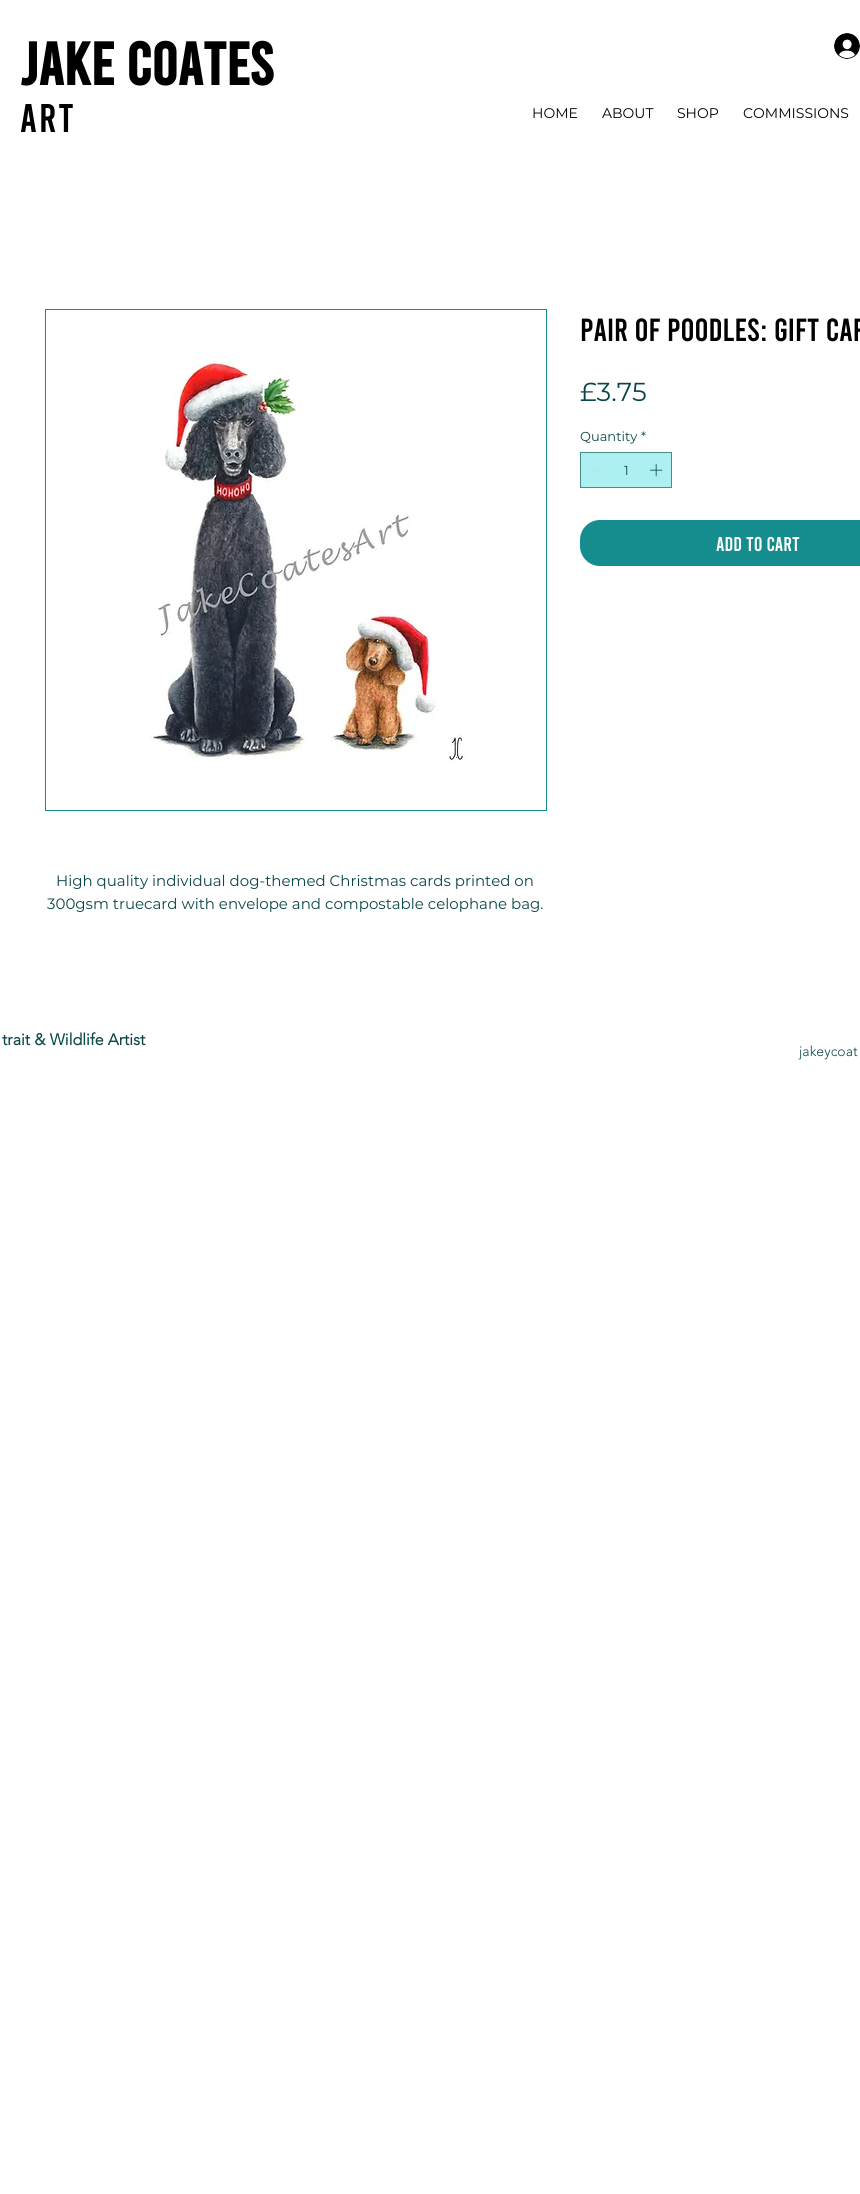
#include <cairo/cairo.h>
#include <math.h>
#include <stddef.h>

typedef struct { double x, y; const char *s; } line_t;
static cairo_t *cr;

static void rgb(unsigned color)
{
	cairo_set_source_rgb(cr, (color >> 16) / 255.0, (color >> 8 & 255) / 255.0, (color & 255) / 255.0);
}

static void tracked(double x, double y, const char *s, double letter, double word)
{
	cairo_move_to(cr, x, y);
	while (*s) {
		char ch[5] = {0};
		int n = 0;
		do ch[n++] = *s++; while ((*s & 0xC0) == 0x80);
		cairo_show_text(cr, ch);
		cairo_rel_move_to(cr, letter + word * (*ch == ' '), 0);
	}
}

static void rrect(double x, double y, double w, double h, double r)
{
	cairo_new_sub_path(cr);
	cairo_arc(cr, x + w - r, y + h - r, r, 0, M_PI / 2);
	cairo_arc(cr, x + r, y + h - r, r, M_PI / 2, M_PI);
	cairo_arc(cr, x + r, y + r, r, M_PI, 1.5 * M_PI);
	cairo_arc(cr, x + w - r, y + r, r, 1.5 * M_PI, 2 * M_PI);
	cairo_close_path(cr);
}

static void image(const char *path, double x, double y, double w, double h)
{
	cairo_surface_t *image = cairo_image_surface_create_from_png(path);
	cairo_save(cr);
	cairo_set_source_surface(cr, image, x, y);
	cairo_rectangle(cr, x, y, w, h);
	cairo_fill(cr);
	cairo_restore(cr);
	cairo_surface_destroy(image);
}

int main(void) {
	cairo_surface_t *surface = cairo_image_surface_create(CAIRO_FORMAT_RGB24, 860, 2194);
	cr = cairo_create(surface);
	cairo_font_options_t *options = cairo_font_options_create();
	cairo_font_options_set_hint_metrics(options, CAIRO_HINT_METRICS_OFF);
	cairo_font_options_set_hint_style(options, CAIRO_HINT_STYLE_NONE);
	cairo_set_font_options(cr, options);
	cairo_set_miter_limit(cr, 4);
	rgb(0xffffff);
	cairo_paint(cr);
	image("img/1.png", 834, 33, 26, 26);
	rgb(0xadf0f2);
	cairo_rectangle(cr, 580.5, 452.5, 91, 35);
	cairo_fill_preserve(cr);
	rgb(0x4c8a8c);
	cairo_set_line_width(cr, 1);
	cairo_stroke(cr);
	rgb(0xbadcdd);
	cairo_set_fill_rule(cr, CAIRO_FILL_RULE_EVEN_ODD);
	cairo_new_path(cr);
	cairo_move_to(cr, 603, 470);
	cairo_line_to(cr, 603, 470.5);
	cairo_line_to(cr, 591, 470.5);
	cairo_line_to(cr, 591, 470);
	cairo_close_path(cr);
	cairo_fill(cr);
	image("img/2.png", 650, 464, 13, 13);
	rgb(0x158d8f);
	rrect(580, 520, 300, 46, 20);
	cairo_fill(cr);
	cairo_rectangle(cr, 45.5, 309.5, 501, 501);
	cairo_stroke(cr);
	image("img/3.png", 150, 358, 316, 404);
	cairo_select_font_face(cr, "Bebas", CAIRO_FONT_SLANT_NORMAL, CAIRO_FONT_WEIGHT_BOLD);
	cairo_set_font_size(cr, 60);
	rgb(0x000000);
	cairo_move_to(cr, 20, 85);
	cairo_show_text(cr, "Jake Coates");
	cairo_select_font_face(cr, "Bebas", CAIRO_FONT_SLANT_NORMAL, CAIRO_FONT_WEIGHT_NORMAL);
	cairo_set_font_size(cr, 40);
	tracked(20, 132, "ART", 2, 0);
	cairo_select_font_face(cr, "Montserrat", CAIRO_FONT_SLANT_NORMAL, CAIRO_FONT_WEIGHT_NORMAL);
	cairo_set_font_size(cr, 14);
	{
		static const line_t items[] = {
			{532, 118, "HOME"},
			{602, 118, "ABOUT"},
			{677, 118, "SHOP"},
			{743, 118, "COMMISSIONS"},
		};
		for (size_t i = 0; i < sizeof items / sizeof *items; i++) {
			cairo_move_to(cr, items[i].x, items[i].y);
			cairo_show_text(cr, items[i].s);
		}
	}
	cairo_select_font_face(cr, "Bebas", CAIRO_FONT_SLANT_NORMAL, CAIRO_FONT_WEIGHT_NORMAL);
	cairo_set_font_size(cr, 32);
	cairo_move_to(cr, 580, 341);
	cairo_show_text(cr, "Pair of Poodles: Gift Car");
	cairo_select_font_face(cr, "Montserrat", CAIRO_FONT_SLANT_NORMAL, CAIRO_FONT_WEIGHT_NORMAL);
	cairo_set_font_size(cr, 26);
	rgb(0x0b4648);
	cairo_move_to(cr, 580, 401);
	cairo_show_text(cr, "£3.75");
	cairo_set_font_size(cr, 13);
	{
		static const line_t items[] = {
			{580, 441, "Quantity"},
			{641, 441, "*"},
			{624, 475, "1"},
		};
		for (size_t i = 0; i < sizeof items / sizeof *items; i++) {
			cairo_move_to(cr, items[i].x, items[i].y);
			cairo_show_text(cr, items[i].s);
		}
	}
	cairo_select_font_face(cr, "Bebas", CAIRO_FONT_SLANT_NORMAL, CAIRO_FONT_WEIGHT_NORMAL);
	cairo_set_font_size(cr, 20);
	rgb(0xfffffe);
	cairo_move_to(cr, 716, 551);
	cairo_show_text(cr, "Add to Cart");
	cairo_select_font_face(cr, "Montserrat", CAIRO_FONT_SLANT_NORMAL, CAIRO_FONT_WEIGHT_NORMAL);
	cairo_set_font_size(cr, 15);
	rgb(0x0b4648);
	cairo_move_to(cr, 56, 886);
	cairo_show_text(cr, "High quality individual dog-themed Christmas cards printed on");
	cairo_move_to(cr, 47, 909);
	cairo_show_text(cr, "300gsm truecard with envelope and compostable celophane bag.");
	cairo_select_font_face(cr, "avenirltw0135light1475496", CAIRO_FONT_SLANT_NORMAL, CAIRO_FONT_WEIGHT_BOLD);
	cairo_set_font_size(cr, 16);
	cairo_move_to(cr, 2, 1045);
	cairo_show_text(cr, "trait & Wildlife Artist");
	cairo_select_font_face(cr, "avenirltw0135light1475496 Light", CAIRO_FONT_SLANT_NORMAL, CAIRO_FONT_WEIGHT_NORMAL);
	cairo_set_font_size(cr, 14);
	cairo_move_to(cr, 799, 1056);
	cairo_show_text(cr, "jakeycoat");
	cairo_surface_write_to_png(surface, "page.png");
	cairo_font_options_destroy(options);
	cairo_destroy(cr);
	cairo_surface_destroy(surface);
	return 0;
}
